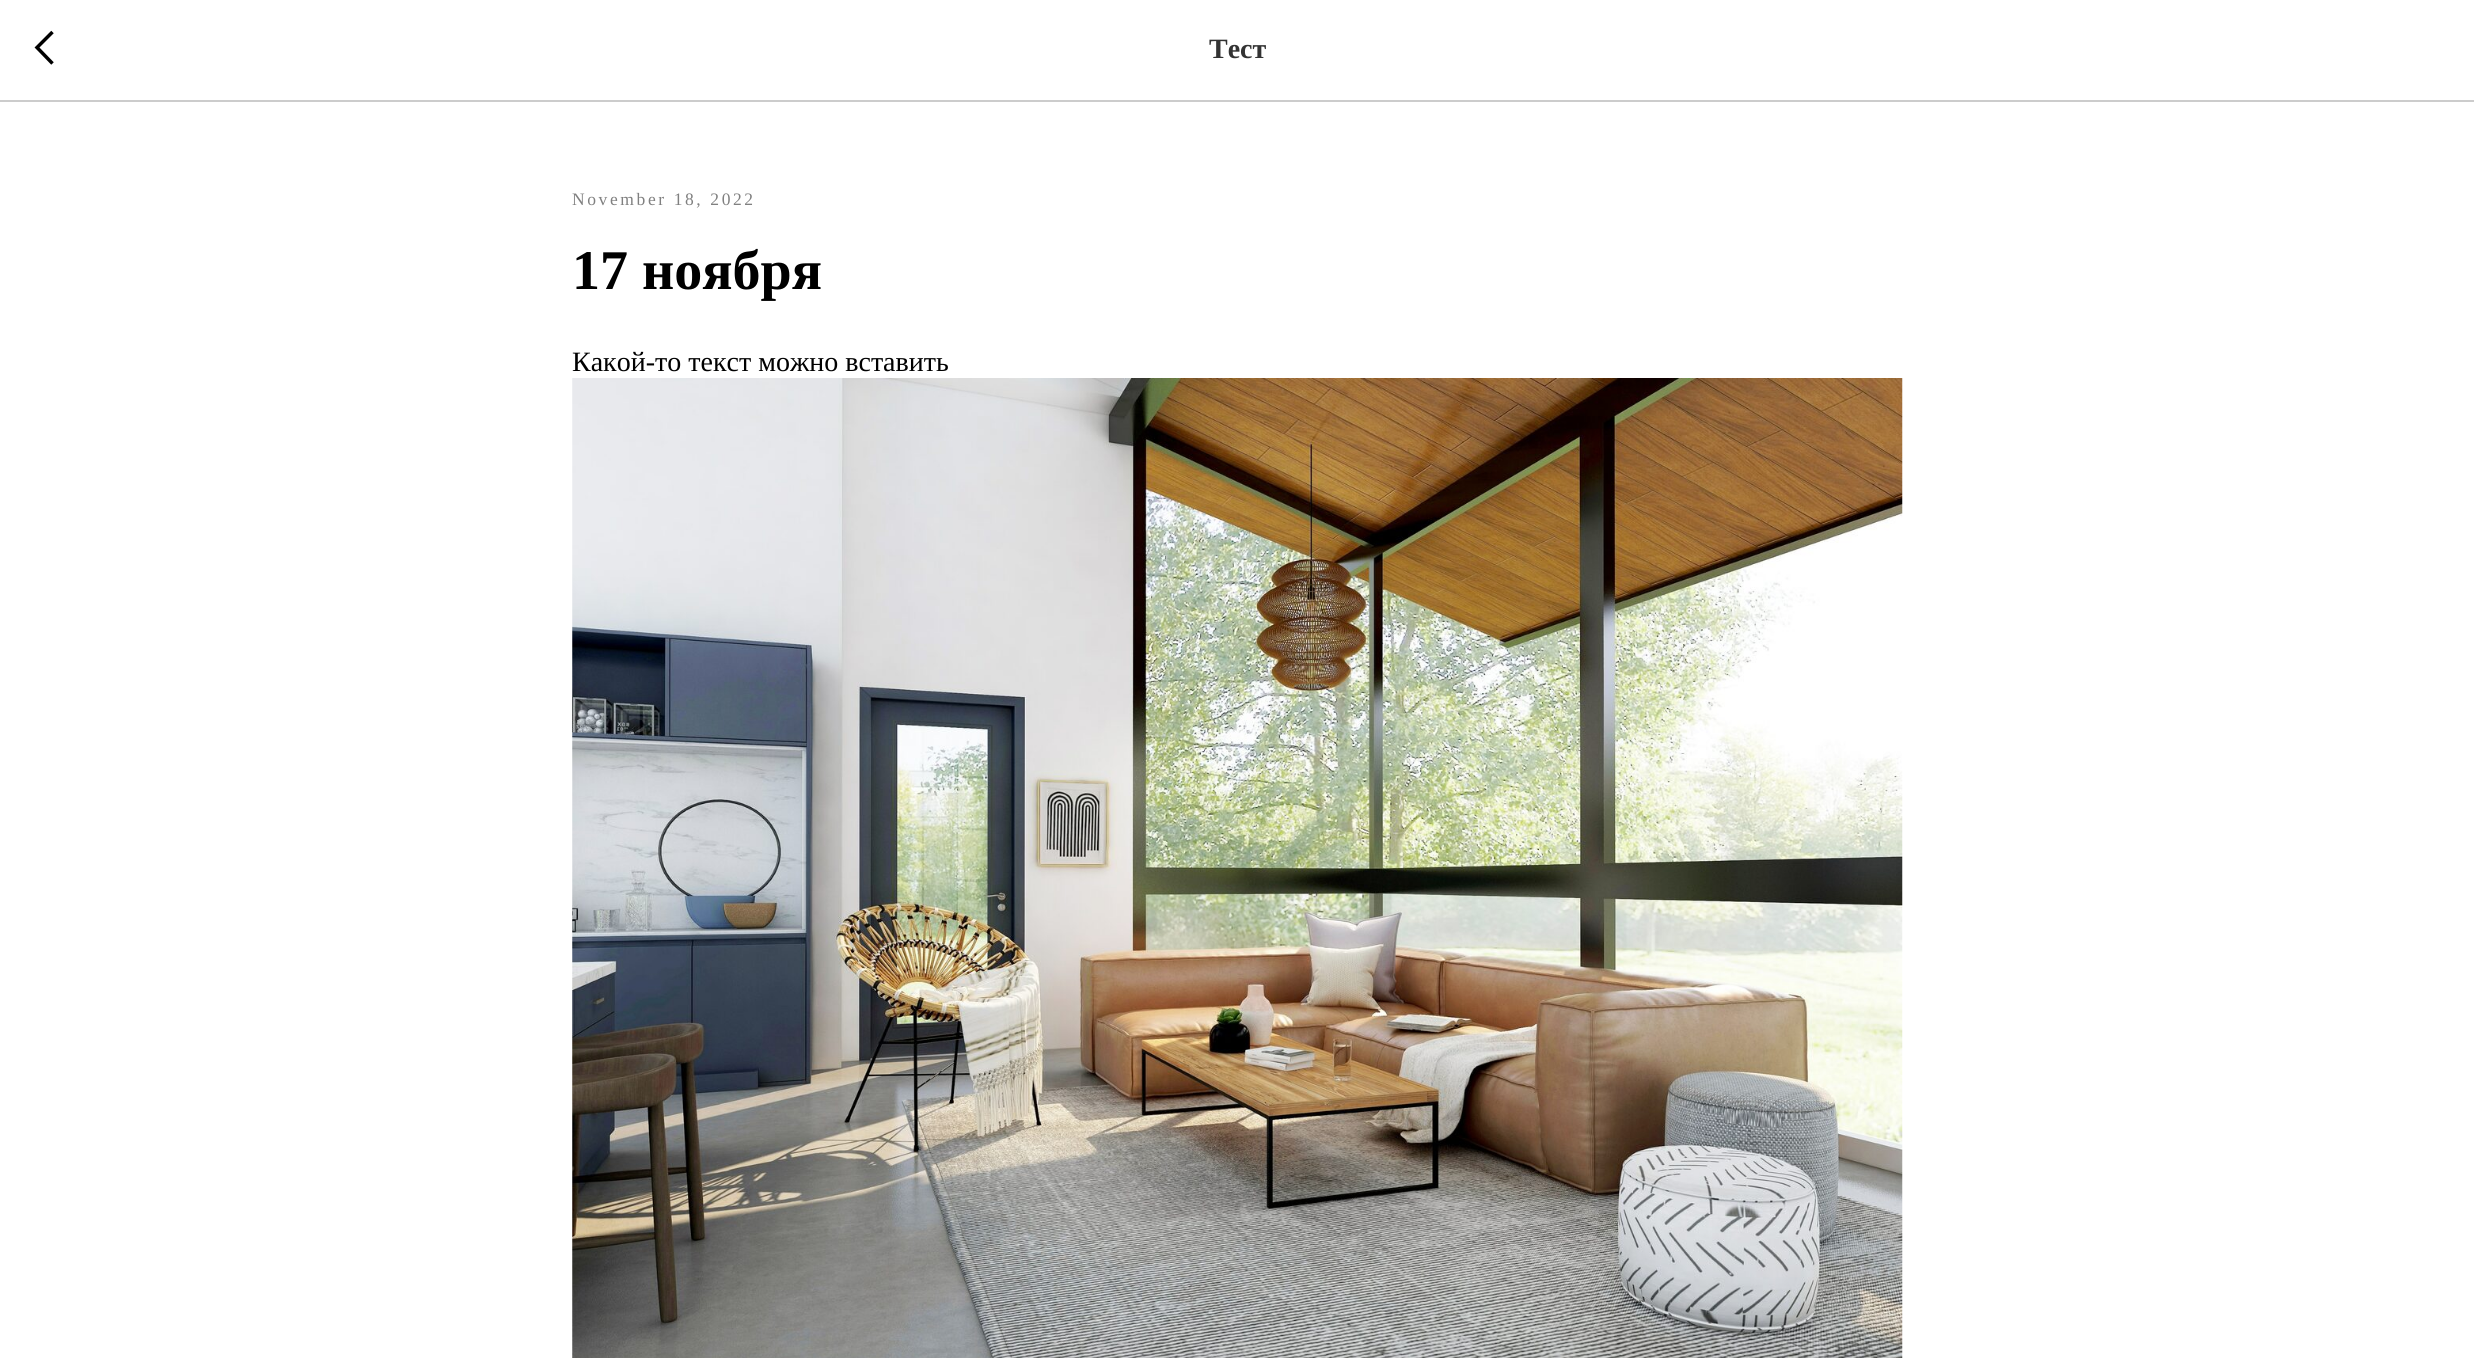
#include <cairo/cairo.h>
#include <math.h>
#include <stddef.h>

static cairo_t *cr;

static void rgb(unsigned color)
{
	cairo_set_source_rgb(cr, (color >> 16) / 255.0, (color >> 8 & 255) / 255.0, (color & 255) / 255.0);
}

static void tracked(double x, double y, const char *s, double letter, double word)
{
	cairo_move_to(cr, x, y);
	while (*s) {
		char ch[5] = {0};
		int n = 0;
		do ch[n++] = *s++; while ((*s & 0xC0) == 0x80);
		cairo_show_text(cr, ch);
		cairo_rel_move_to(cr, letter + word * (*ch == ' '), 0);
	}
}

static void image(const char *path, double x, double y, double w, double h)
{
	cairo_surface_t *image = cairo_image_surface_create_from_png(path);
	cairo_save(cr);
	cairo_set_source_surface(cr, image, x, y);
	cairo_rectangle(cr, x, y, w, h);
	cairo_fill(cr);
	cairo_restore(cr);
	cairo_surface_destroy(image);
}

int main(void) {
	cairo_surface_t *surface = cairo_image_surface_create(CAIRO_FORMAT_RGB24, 2474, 1358);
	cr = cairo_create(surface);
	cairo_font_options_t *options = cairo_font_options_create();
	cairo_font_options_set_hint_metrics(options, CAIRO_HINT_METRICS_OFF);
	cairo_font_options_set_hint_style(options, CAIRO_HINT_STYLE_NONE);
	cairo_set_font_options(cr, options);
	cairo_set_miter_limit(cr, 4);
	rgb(0xffffff);
	cairo_paint(cr);
	rgb(0xcccccc);
	cairo_rectangle(cr, 0, 100, 2474, 2);
	cairo_fill(cr);
	cairo_new_path(cr);
	cairo_move_to(cr, 52.5, 63.5);
	cairo_line_to(cr, 37, 47.5);
	cairo_line_to(cr, 52.5, 32);
	rgb(0x000000);
	cairo_set_line_width(cr, 3.5);
	cairo_stroke(cr);
	image("img/1.png", 572, 378, 1331, 980);
	cairo_select_font_face(cr, "Liberation Serif", CAIRO_FONT_SLANT_NORMAL, CAIRO_FONT_WEIGHT_BOLD);
	cairo_set_font_size(cr, 28);
	rgb(0x333333);
	cairo_move_to(cr, 1209, 58);
	cairo_show_text(cr, "Тест");
	cairo_select_font_face(cr, "Liberation Serif", CAIRO_FONT_SLANT_NORMAL, CAIRO_FONT_WEIGHT_NORMAL);
	cairo_set_font_size(cr, 17.5);
	rgb(0x808080);
	tracked(572, 205, "November 18, 2022", 2.6, 0);
	cairo_select_font_face(cr, "Liberation Serif", CAIRO_FONT_SLANT_NORMAL, CAIRO_FONT_WEIGHT_BOLD);
	cairo_set_font_size(cr, 56);
	rgb(0x000000);
	cairo_move_to(cr, 572, 289);
	cairo_show_text(cr, "17 ноября");
	cairo_select_font_face(cr, "Liberation Serif", CAIRO_FONT_SLANT_NORMAL, CAIRO_FONT_WEIGHT_NORMAL);
	cairo_set_font_size(cr, 28);
	cairo_move_to(cr, 572, 371);
	cairo_show_text(cr, "Какой-то текст можно вставить");
	cairo_surface_write_to_png(surface, "page.png");
	cairo_font_options_destroy(options);
	cairo_destroy(cr);
	cairo_surface_destroy(surface);
	return 0;
}
